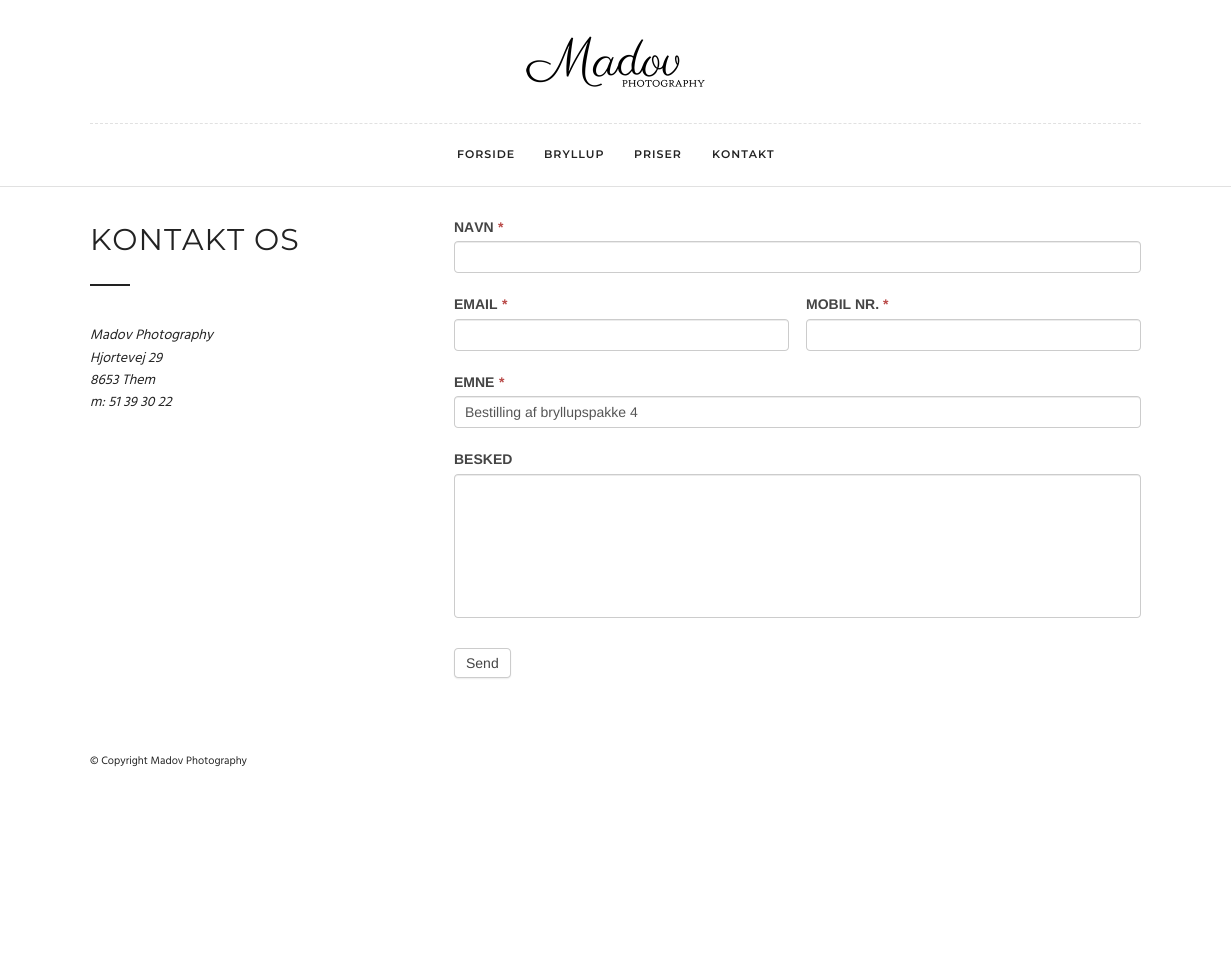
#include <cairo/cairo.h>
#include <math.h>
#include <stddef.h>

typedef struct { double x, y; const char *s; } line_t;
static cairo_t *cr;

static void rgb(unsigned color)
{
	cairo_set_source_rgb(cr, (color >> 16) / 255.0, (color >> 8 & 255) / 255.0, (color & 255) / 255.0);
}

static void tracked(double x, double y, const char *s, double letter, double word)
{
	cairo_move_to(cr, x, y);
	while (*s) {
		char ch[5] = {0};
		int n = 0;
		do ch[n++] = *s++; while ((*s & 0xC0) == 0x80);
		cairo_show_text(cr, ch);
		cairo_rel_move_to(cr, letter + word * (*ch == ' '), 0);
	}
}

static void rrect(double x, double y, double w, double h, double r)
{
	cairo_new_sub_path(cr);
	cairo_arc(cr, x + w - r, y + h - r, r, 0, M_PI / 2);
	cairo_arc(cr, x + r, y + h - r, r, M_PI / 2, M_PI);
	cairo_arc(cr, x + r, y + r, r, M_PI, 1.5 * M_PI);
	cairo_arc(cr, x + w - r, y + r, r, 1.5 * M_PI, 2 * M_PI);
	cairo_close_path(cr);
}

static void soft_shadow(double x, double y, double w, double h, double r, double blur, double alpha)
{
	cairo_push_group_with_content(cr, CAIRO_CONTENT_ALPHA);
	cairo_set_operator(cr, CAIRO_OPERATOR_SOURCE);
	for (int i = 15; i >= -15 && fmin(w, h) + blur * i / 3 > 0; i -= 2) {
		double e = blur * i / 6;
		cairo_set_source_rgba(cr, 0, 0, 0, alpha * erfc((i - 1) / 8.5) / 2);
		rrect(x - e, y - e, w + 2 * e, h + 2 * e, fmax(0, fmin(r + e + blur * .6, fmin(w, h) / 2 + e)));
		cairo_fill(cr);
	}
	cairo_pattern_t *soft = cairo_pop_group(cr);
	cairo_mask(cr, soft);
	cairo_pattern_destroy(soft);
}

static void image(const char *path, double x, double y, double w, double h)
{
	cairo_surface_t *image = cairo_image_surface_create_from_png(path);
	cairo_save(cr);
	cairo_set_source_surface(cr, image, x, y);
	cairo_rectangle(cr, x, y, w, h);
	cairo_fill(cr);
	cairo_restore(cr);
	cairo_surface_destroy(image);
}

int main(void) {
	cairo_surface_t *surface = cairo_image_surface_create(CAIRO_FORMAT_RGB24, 1231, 960);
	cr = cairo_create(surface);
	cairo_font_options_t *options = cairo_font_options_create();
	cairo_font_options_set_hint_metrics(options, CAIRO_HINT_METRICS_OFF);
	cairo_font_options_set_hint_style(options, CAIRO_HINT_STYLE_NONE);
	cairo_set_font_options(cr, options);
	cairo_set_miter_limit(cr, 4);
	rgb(0xffffff);
	cairo_paint(cr);
	rgb(0xe1e1e1);
	cairo_rectangle(cr, 0, 186, 1231, 1);
	cairo_fill(cr);
	image("img/1.png", 526, 36, 179, 51);
	cairo_new_path(cr);
	cairo_move_to(cr, 90, 123.5);
	cairo_line_to(cr, 1141, 123.5);
	cairo_set_line_width(cr, 1);
	cairo_set_dash(cr, (double[]){3, 1.99}, 2, 0);
	cairo_stroke(cr);
	rgb(0x222222);
	cairo_rectangle(cr, 90, 284, 40, 2);
	cairo_fill(cr);
	rgb(0xececec);
	cairo_new_path(cr);
	cairo_move_to(cr, 458, 243);
	cairo_line_to(cr, 1137, 243);
	cairo_curve_to(cr, 1139, 243, 1140, 244, 1140, 246);
	cairo_line_to(cr, 1140, 245);
	cairo_curve_to(cr, 1140, 243, 1139, 242, 1137, 242);
	cairo_line_to(cr, 458, 242);
	cairo_curve_to(cr, 456, 242, 455, 243, 455, 245);
	cairo_line_to(cr, 455, 246);
	cairo_curve_to(cr, 455, 244, 456, 243, 458, 243);
	cairo_close_path(cr);
	cairo_fill(cr);
	rrect(454.5, 241.5, 686, 31, 3.5);
	rgb(0xcccccc);
	cairo_set_dash(cr, NULL, 0, 0);
	cairo_stroke(cr);
	rgb(0xececec);
	cairo_new_path(cr);
	cairo_move_to(cr, 458, 321);
	cairo_line_to(cr, 785, 321);
	cairo_curve_to(cr, 787, 321, 788, 322, 788, 324);
	cairo_curve_to(cr, 788, 322, 787, 320, 785, 320);
	cairo_line_to(cr, 458, 320);
	cairo_curve_to(cr, 456, 320, 455, 322, 455, 324);
	cairo_curve_to(cr, 455, 322, 456, 321, 458, 321);
	cairo_close_path(cr);
	cairo_fill(cr);
	rrect(454.5, 319.5, 334, 31, 3.5);
	rgb(0xcccccc);
	cairo_stroke(cr);
	rgb(0xececec);
	cairo_new_path(cr);
	cairo_move_to(cr, 810, 321);
	cairo_line_to(cr, 1137, 321);
	cairo_curve_to(cr, 1139, 321, 1140, 322, 1140, 324);
	cairo_curve_to(cr, 1140, 322, 1139, 320, 1137, 320);
	cairo_line_to(cr, 810, 320);
	cairo_curve_to(cr, 808, 320, 807, 322, 807, 324);
	cairo_curve_to(cr, 807, 322, 808, 321, 810, 321);
	cairo_close_path(cr);
	cairo_fill(cr);
	rrect(806.5, 319.5, 334, 31, 3.5);
	rgb(0xcccccc);
	cairo_stroke(cr);
	rgb(0xececec);
	cairo_new_path(cr);
	cairo_move_to(cr, 458, 398);
	cairo_line_to(cr, 1137, 398);
	cairo_curve_to(cr, 1139, 398, 1140, 399, 1140, 401);
	cairo_line_to(cr, 1140, 400);
	cairo_curve_to(cr, 1140, 398, 1139, 397, 1137, 397);
	cairo_line_to(cr, 458, 397);
	cairo_curve_to(cr, 456, 397, 455, 398, 455, 400);
	cairo_line_to(cr, 455, 401);
	cairo_curve_to(cr, 455, 399, 456, 398, 458, 398);
	cairo_close_path(cr);
	cairo_fill(cr);
	rrect(454.5, 396.5, 686, 31, 3.5);
	rgb(0xcccccc);
	cairo_stroke(cr);
	rgb(0xececec);
	cairo_new_path(cr);
	cairo_move_to(cr, 458, 476);
	cairo_line_to(cr, 1137, 476);
	cairo_curve_to(cr, 1139, 476, 1140, 477, 1140, 479);
	cairo_line_to(cr, 1140, 478);
	cairo_curve_to(cr, 1140, 476, 1139, 475, 1137, 475);
	cairo_line_to(cr, 458, 475);
	cairo_curve_to(cr, 456, 475, 455, 476, 455, 478);
	cairo_line_to(cr, 455, 479);
	cairo_curve_to(cr, 455, 477, 456, 476, 458, 476);
	cairo_close_path(cr);
	cairo_fill(cr);
	rrect(454.5, 474.5, 686, 143, 3.5);
	rgb(0xcccccc);
	cairo_stroke(cr);
	rgb(0xeeeeee);
	soft_shadow(454, 649, 57, 30, 4, 0.5, 1);
	rgb(0xffffff);
	rrect(454.5, 648.5, 56, 29, 3.5);
	cairo_fill_preserve(cr);
	rgb(0xcccccc);
	cairo_stroke(cr);
	cairo_select_font_face(cr, "Montserrat SemiBold", CAIRO_FONT_SLANT_NORMAL, CAIRO_FONT_WEIGHT_NORMAL);
	cairo_set_font_size(cr, 11);
	rgb(0x222222);
	{
		static const line_t items[] = {
			{457, 158, "FORSIDE"},
			{544, 158, "BRYLLUP"},
			{634, 158, "PRISER"},
			{712, 158, "KONTAKT"},
		};
		for (size_t i = 0; i < sizeof items / sizeof *items; i++) {
			tracked(items[i].x, items[i].y, items[i].s, 1, 0);
		}
	}
	cairo_select_font_face(cr, "Montserrat Thin", CAIRO_FONT_SLANT_NORMAL, CAIRO_FONT_WEIGHT_NORMAL);
	cairo_set_font_size(cr, 30);
	tracked(90, 250, "KONTAKT OS", 1, 0);
	cairo_select_font_face(cr, "Hind", CAIRO_FONT_SLANT_ITALIC, CAIRO_FONT_WEIGHT_NORMAL);
	cairo_set_font_size(cr, 14);
	{
		static const line_t items[] = {
			{90, 339, "Madov Photography"},
			{90, 362, "Hjortevej 29"},
			{90, 384, "8653 Them"},
			{90, 406, "m: 51 39 30 22"},
		};
		for (size_t i = 0; i < sizeof items / sizeof *items; i++) {
			cairo_move_to(cr, items[i].x, items[i].y);
			cairo_show_text(cr, items[i].s);
		}
	}
	cairo_select_font_face(cr, "Liberation Sans", CAIRO_FONT_SLANT_NORMAL, CAIRO_FONT_WEIGHT_BOLD);
	rgb(0x444444);
	cairo_move_to(cr, 454, 232);
	cairo_show_text(cr, "NAVN");
	rgb(0xb94a48);
	cairo_move_to(cr, 498, 232);
	cairo_show_text(cr, "*");
	rgb(0x444444);
	cairo_move_to(cr, 454, 309);
	cairo_show_text(cr, "EMAIL");
	rgb(0xb94a48);
	cairo_move_to(cr, 502, 309);
	cairo_show_text(cr, "*");
	rgb(0x444444);
	cairo_move_to(cr, 806, 309);
	cairo_show_text(cr, "MOBIL NR.");
	rgb(0xb94a48);
	cairo_move_to(cr, 883, 309);
	cairo_show_text(cr, "*");
	rgb(0x444444);
	cairo_move_to(cr, 454, 387);
	cairo_show_text(cr, "EMNE");
	rgb(0xb94a48);
	cairo_move_to(cr, 499, 387);
	cairo_show_text(cr, "*");
	cairo_select_font_face(cr, "Liberation Sans", CAIRO_FONT_SLANT_NORMAL, CAIRO_FONT_WEIGHT_NORMAL);
	rgb(0x555555);
	cairo_move_to(cr, 465, 417);
	cairo_show_text(cr, "Bestilling af bryllupspakke 4");
	cairo_select_font_face(cr, "Liberation Sans", CAIRO_FONT_SLANT_NORMAL, CAIRO_FONT_WEIGHT_BOLD);
	rgb(0x444444);
	cairo_move_to(cr, 454, 464);
	cairo_show_text(cr, "BESKED");
	cairo_select_font_face(cr, "Liberation Sans", CAIRO_FONT_SLANT_NORMAL, CAIRO_FONT_WEIGHT_NORMAL);
	cairo_move_to(cr, 466, 668);
	cairo_show_text(cr, "Send");
	cairo_select_font_face(cr, "Hind", CAIRO_FONT_SLANT_NORMAL, CAIRO_FONT_WEIGHT_NORMAL);
	cairo_set_font_size(cr, 11);
	rgb(0x222222);
	cairo_move_to(cr, 90, 764);
	cairo_show_text(cr, "© Copyright Madov Photography");
	cairo_surface_write_to_png(surface, "page.png");
	cairo_font_options_destroy(options);
	cairo_destroy(cr);
	cairo_surface_destroy(surface);
	return 0;
}
